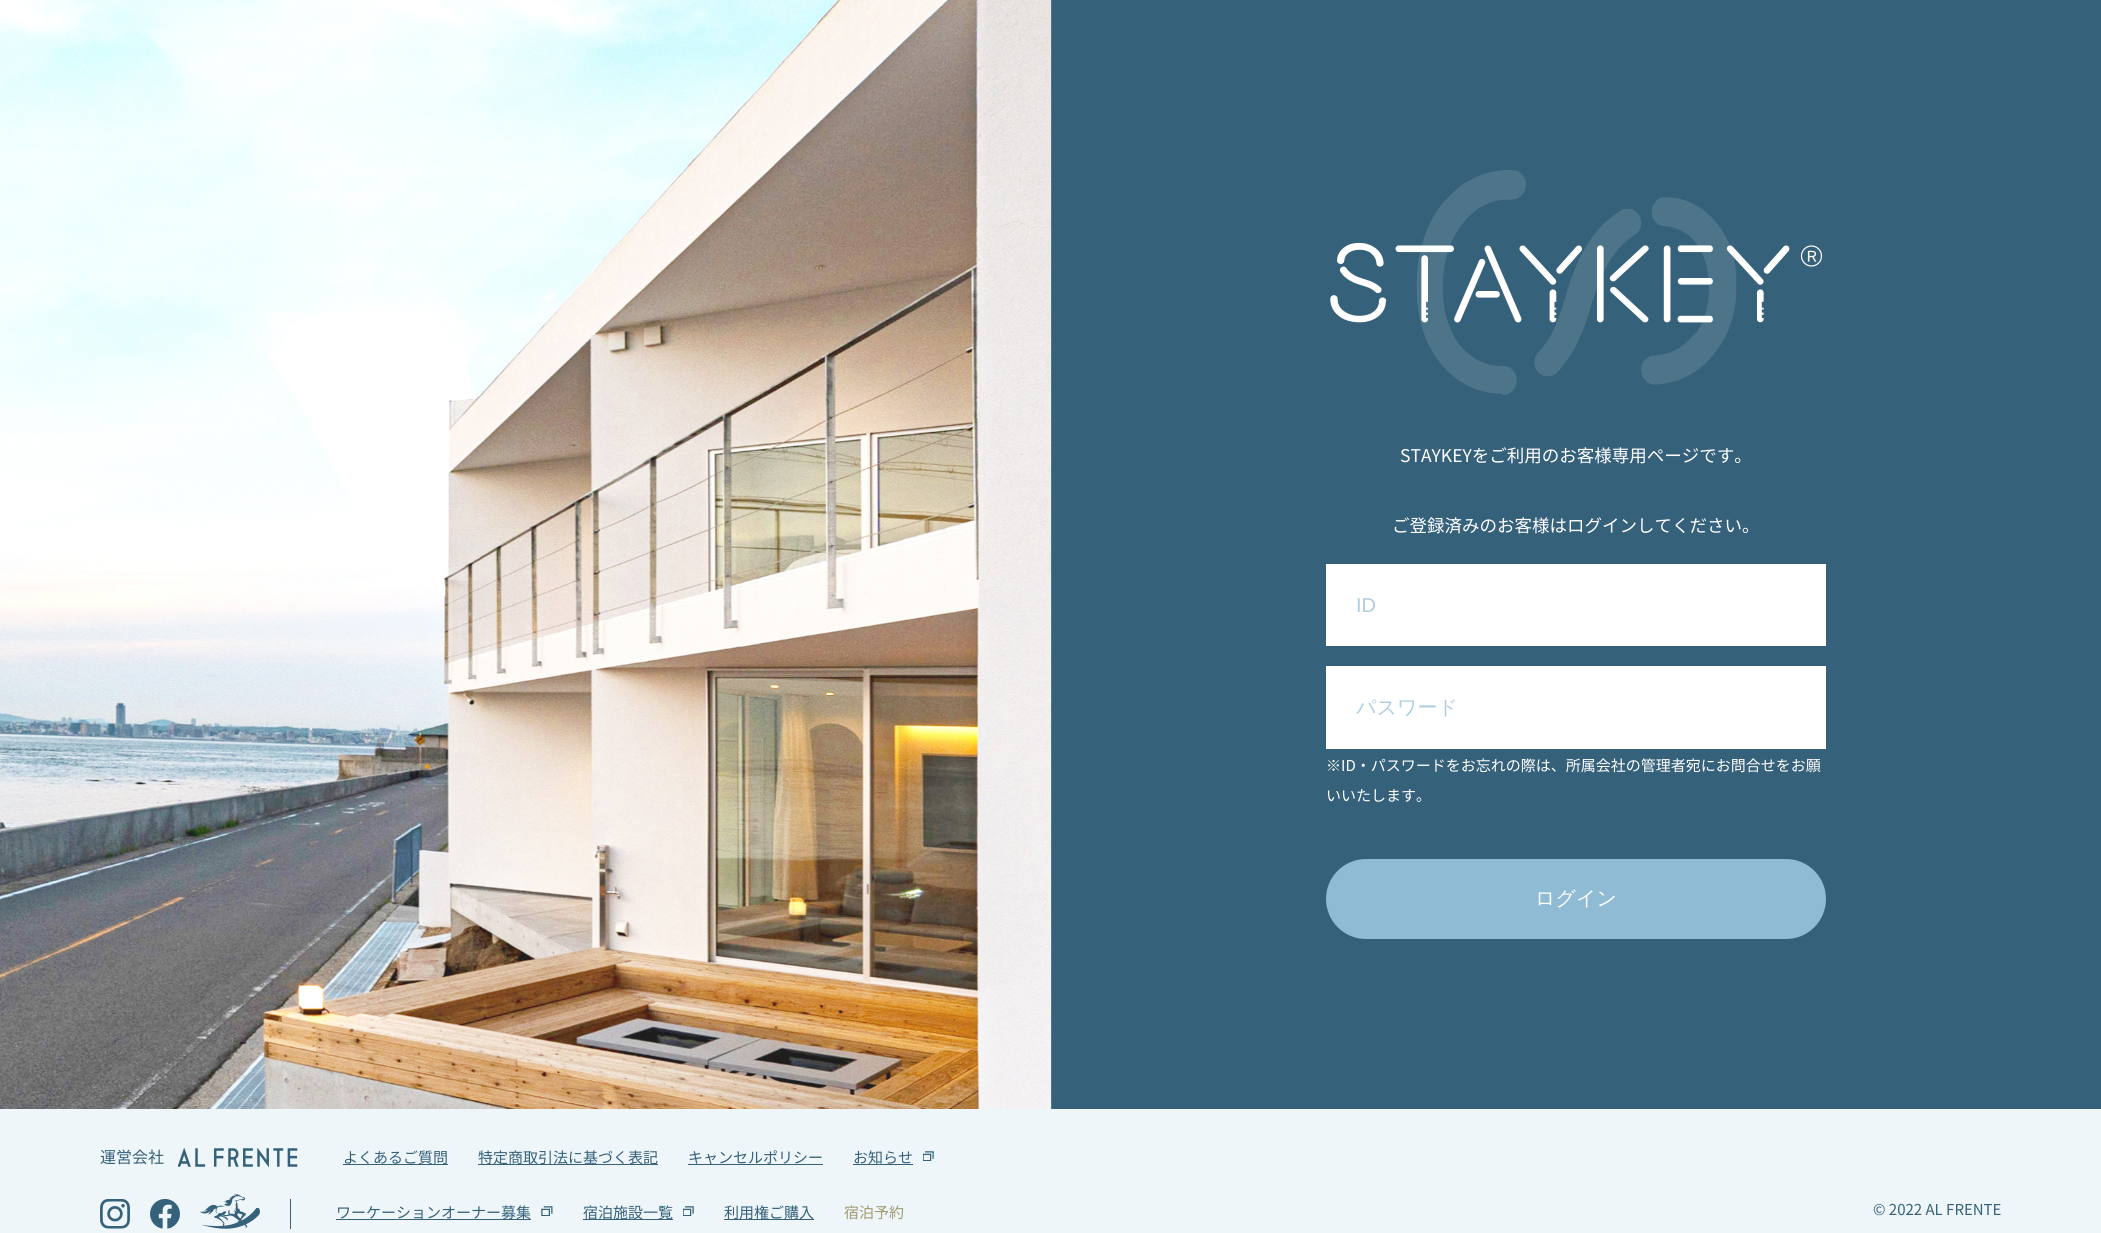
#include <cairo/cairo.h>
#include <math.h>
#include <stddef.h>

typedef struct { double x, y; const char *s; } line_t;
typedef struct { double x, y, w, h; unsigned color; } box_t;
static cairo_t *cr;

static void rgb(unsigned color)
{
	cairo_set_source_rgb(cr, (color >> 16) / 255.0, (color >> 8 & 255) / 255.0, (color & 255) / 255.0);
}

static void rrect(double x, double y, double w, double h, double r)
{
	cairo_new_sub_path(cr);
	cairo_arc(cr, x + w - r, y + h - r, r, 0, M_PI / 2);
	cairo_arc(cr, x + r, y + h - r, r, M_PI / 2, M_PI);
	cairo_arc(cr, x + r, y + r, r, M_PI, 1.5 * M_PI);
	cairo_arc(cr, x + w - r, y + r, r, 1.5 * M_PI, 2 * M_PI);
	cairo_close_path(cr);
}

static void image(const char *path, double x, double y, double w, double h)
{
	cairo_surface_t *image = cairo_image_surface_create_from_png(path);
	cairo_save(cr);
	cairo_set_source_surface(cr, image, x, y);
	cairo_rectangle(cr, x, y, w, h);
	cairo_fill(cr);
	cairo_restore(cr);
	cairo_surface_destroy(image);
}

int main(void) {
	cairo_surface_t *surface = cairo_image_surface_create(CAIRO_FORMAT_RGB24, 2101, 1233);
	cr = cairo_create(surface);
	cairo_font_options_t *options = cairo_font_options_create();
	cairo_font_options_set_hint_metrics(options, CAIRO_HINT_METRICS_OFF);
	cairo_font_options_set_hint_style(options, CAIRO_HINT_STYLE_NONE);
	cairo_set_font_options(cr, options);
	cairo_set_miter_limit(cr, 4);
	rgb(0xeef6fa);
	cairo_paint(cr);
	rgb(0x36617a);
	cairo_rectangle(cr, 1051, 0, 1050, 1109);
	cairo_fill(cr);
	image("img/1.png", 0, 0, 1052, 1109);
	image("img/2.png", 1050, 469, 1, 581);
	image("img/3.png", 1330, 170, 493, 225);
	rgb(0xffffff);
	cairo_rectangle(cr, 1326, 564, 500, 82);
	cairo_fill(cr);
	cairo_rectangle(cr, 1326, 666, 500, 83);
	cairo_fill(cr);
	rgb(0x8fbbd4);
	rrect(1326, 859, 500, 80, 40);
	cairo_fill(cr);
	image("img/4.png", 178, 1148, 120, 20);
	{
		static const box_t items[] = {
			{343, 1164, 105, 1, 0x36617a},
			{478, 1164, 180, 1, 0x36617a},
			{688, 1164, 135, 1, 0x36617a},
			{853, 1164, 60, 1, 0x36617a},
		};
		for (size_t i = 0; i < sizeof items / sizeof *items; i++) {
			rgb(items[i].color);
			cairo_rectangle(cr, items[i].x, items[i].y, items[i].w, items[i].h);
			cairo_fill(cr);
		}
	}
	image("img/5.png", 923, 1151, 11, 10);
	image("img/6.png", 100, 1199, 30, 30);
	image("img/7.png", 150, 1199, 30, 30);
	image("img/8.png", 200, 1194, 60, 35);
	cairo_rectangle(cr, 290, 1199, 1, 30);
	cairo_fill(cr);
	cairo_rectangle(cr, 336, 1219, 195, 1);
	cairo_fill(cr);
	image("img/9.png", 541, 1206, 12, 10);
	cairo_rectangle(cr, 583, 1219, 90, 1);
	cairo_fill(cr);
	image("img/5.png", 683, 1206, 11, 10);
	cairo_rectangle(cr, 724, 1219, 90, 1);
	cairo_fill(cr);
	cairo_select_font_face(cr, "Noto Sans JP", CAIRO_FONT_SLANT_NORMAL, CAIRO_FONT_WEIGHT_NORMAL);
	cairo_set_font_size(cr, 17.5);
	rgb(0xffffff);
	cairo_move_to(cr, 1400, 462);
	cairo_show_text(cr, "STAYKEYをご利用のお客様専用ページです。");
	cairo_move_to(cr, 1392, 532);
	cairo_show_text(cr, "ご登録済みのお客様はログインしてください。");
	cairo_select_font_face(cr, "Liberation Sans", CAIRO_FONT_SLANT_NORMAL, CAIRO_FONT_WEIGHT_NORMAL);
	cairo_set_font_size(cr, 20);
	rgb(0xaecee0);
	cairo_move_to(cr, 1356, 612);
	cairo_show_text(cr, "ID");
	cairo_select_font_face(cr, "WenQuanYi Zen Hei Medium", CAIRO_FONT_SLANT_NORMAL, CAIRO_FONT_WEIGHT_NORMAL);
	cairo_move_to(cr, 1356, 714);
	cairo_show_text(cr, "パスワード");
	cairo_select_font_face(cr, "Noto Sans JP", CAIRO_FONT_SLANT_NORMAL, CAIRO_FONT_WEIGHT_NORMAL);
	cairo_set_font_size(cr, 15);
	rgb(0xffffff);
	cairo_move_to(cr, 1326, 771);
	cairo_show_text(cr, "※ID・パスワードをお忘れの際は、所属会社の管理者宛にお問合せをお願");
	cairo_move_to(cr, 1326, 801);
	cairo_show_text(cr, "いいたします。");
	cairo_select_font_face(cr, "WenQuanYi Zen Hei Medium", CAIRO_FONT_SLANT_NORMAL, CAIRO_FONT_WEIGHT_NORMAL);
	cairo_set_font_size(cr, 20);
	cairo_move_to(cr, 1535, 905);
	cairo_show_text(cr, "ログイン");
	cairo_select_font_face(cr, "Noto Sans JP", CAIRO_FONT_SLANT_NORMAL, CAIRO_FONT_WEIGHT_NORMAL);
	cairo_set_font_size(cr, 16);
	rgb(0x36617a);
	cairo_move_to(cr, 100, 1163);
	cairo_show_text(cr, "運営会社");
	cairo_set_font_size(cr, 15);
	{
		static const line_t items[] = {
			{343, 1163, "よくあるご質問"},
			{478, 1163, "特定商取引法に基づく表記"},
			{688, 1163, "キャンセルポリシー"},
			{853, 1163, "お知らせ"},
			{336, 1218, "ワーケーションオーナー募集"},
			{583, 1218, "宿泊施設一覧"},
			{724, 1218, "利用権ご購入"},
		};
		for (size_t i = 0; i < sizeof items / sizeof *items; i++) {
			cairo_move_to(cr, items[i].x, items[i].y);
			cairo_show_text(cr, items[i].s);
		}
	}
	rgb(0xa3996f);
	cairo_move_to(cr, 844, 1218);
	cairo_show_text(cr, "宿泊予約");
	rgb(0x36617a);
	cairo_move_to(cr, 1873, 1215);
	cairo_show_text(cr, "© 2022 AL FRENTE");
	cairo_surface_write_to_png(surface, "page.png");
	cairo_font_options_destroy(options);
	cairo_destroy(cr);
	cairo_surface_destroy(surface);
	return 0;
}
